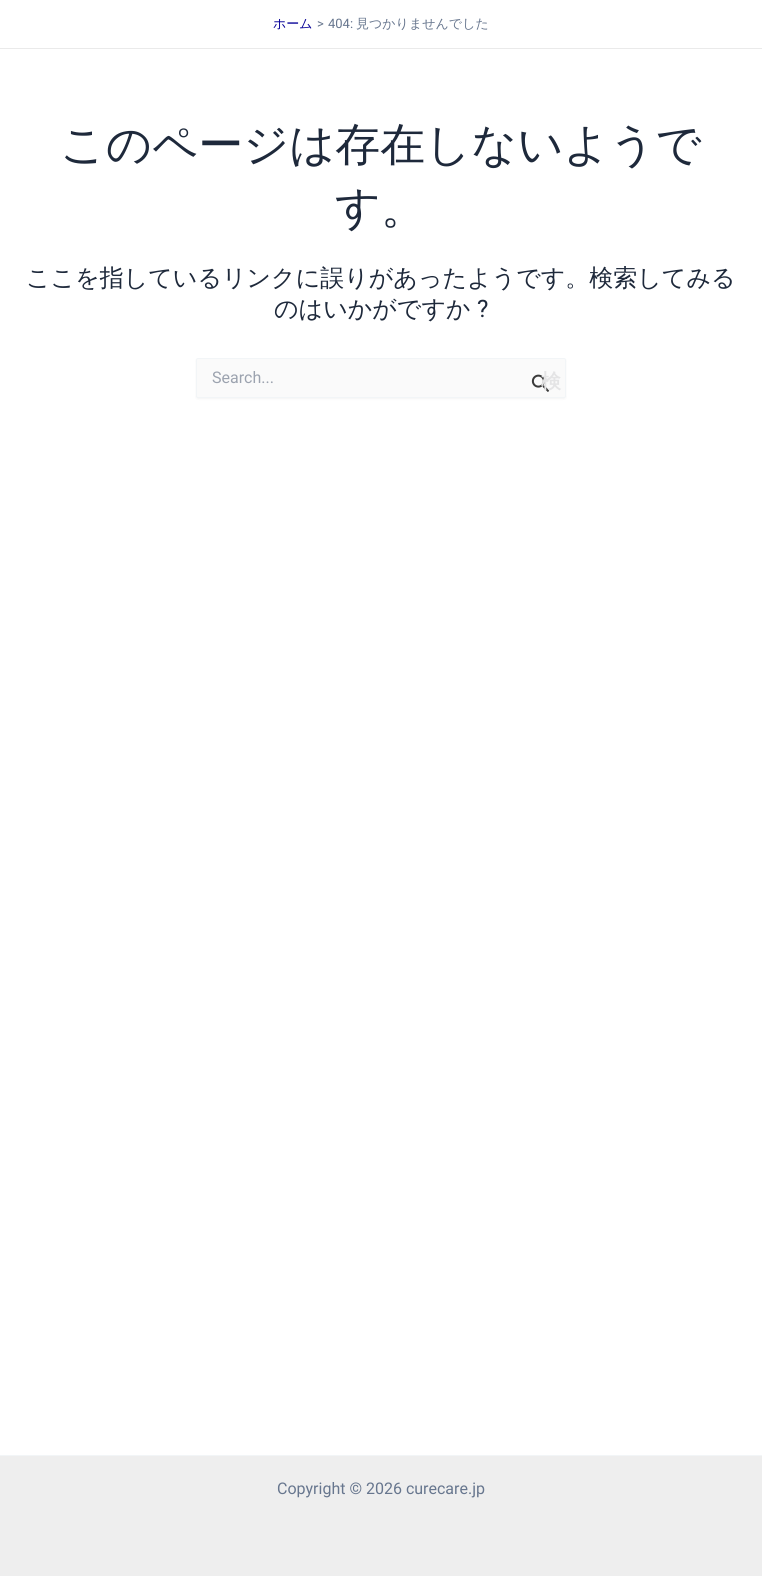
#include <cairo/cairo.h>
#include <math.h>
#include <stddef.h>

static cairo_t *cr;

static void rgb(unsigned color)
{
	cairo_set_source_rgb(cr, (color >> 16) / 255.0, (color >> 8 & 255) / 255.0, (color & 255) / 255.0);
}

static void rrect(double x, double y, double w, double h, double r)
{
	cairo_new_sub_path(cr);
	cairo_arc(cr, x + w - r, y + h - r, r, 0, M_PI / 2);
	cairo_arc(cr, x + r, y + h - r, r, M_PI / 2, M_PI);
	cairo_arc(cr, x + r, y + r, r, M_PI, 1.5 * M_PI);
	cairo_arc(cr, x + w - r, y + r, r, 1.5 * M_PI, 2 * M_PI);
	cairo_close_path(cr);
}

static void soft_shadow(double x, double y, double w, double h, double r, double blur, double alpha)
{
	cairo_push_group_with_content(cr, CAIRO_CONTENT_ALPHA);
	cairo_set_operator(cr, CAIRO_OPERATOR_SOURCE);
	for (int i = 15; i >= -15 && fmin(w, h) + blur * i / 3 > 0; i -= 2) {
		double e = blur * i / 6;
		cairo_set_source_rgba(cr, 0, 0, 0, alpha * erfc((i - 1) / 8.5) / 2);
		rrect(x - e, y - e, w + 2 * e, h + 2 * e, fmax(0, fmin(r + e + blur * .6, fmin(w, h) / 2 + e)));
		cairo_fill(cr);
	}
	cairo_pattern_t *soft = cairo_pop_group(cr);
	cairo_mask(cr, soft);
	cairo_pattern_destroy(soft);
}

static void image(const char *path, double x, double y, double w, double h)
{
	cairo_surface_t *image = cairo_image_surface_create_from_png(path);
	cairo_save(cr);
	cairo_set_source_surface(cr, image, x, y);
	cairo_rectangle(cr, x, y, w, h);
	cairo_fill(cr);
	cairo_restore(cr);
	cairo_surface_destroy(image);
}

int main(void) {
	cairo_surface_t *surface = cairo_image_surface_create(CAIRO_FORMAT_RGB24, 762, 1576);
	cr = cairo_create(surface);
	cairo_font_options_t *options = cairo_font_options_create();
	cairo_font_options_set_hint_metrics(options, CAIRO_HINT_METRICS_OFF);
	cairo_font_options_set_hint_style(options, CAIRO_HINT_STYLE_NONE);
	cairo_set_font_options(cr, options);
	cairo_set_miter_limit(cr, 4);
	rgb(0xffffff);
	cairo_paint(cr);
	rgb(0xeaeaea);
	cairo_rectangle(cr, 0, 48, 762, 1);
	cairo_fill(cr);
	rgb(0x000000);
	soft_shadow(196, 359, 370, 40, 2, 1, 0.05);
	rgb(0xfafafa);
	rrect(196.5, 358.5, 369, 39, 1.5);
	cairo_fill_preserve(cr);
	rgb(0xf2f5f7);
	cairo_set_line_width(cr, 1);
	cairo_stroke(cr);
	image("img/1.png", 531, 374, 18, 18);
	rgb(0xeeeeee);
	cairo_rectangle(cr, 0, 1456, 762, 120);
	cairo_fill(cr);
	rgb(0xf2f5f7);
	cairo_rectangle(cr, 0, 1455, 762, 1);
	cairo_fill(cr);
	cairo_select_font_face(cr, "WenQuanYi Zen Hei Medium", CAIRO_FONT_SLANT_NORMAL, CAIRO_FONT_WEIGHT_NORMAL);
	cairo_set_font_size(cr, 13);
	rgb(0x060097);
	cairo_move_to(cr, 273, 28);
	cairo_show_text(cr, "ホーム");
	cairo_select_font_face(cr, "Roboto", CAIRO_FONT_SLANT_NORMAL, CAIRO_FONT_WEIGHT_NORMAL);
	rgb(0x67768e);
	cairo_move_to(cr, 317, 28);
	cairo_show_text(cr, ">");
	cairo_move_to(cr, 328, 28);
	cairo_show_text(cr, "404:");
	cairo_select_font_face(cr, "WenQuanYi Zen Hei Medium", CAIRO_FONT_SLANT_NORMAL, CAIRO_FONT_WEIGHT_NORMAL);
	cairo_move_to(cr, 356, 28);
	cairo_show_text(cr, "見つかりませんでした");
	cairo_set_font_size(cr, 45);
	rgb(0x1e293b);
	cairo_move_to(cr, 60, 160);
	cairo_show_text(cr, "このページは存在しないようで");
	cairo_move_to(cr, 335, 223);
	cairo_show_text(cr, "す。");
	cairo_set_font_size(cr, 24);
	cairo_move_to(cr, 26, 286);
	cairo_show_text(cr, "ここを指しているリンクに誤りがあったようです。検索してみる");
	cairo_move_to(cr, 274, 317);
	cairo_show_text(cr, "のはいかがですか");
	cairo_select_font_face(cr, "Roboto", CAIRO_FONT_SLANT_NORMAL, CAIRO_FONT_WEIGHT_NORMAL);
	cairo_move_to(cr, 477, 317);
	cairo_show_text(cr, "?");
	cairo_set_font_size(cr, 16);
	rgb(0x9ca3af);
	cairo_move_to(cr, 212, 383);
	cairo_show_text(cr, "Search...");
	cairo_select_font_face(cr, "WenQuanYi Zen Hei", CAIRO_FONT_SLANT_NORMAL, CAIRO_FONT_WEIGHT_BOLD);
	cairo_set_font_size(cr, 20);
	rgb(0xe4e4e5);
	cairo_move_to(cr, 541, 388);
	cairo_show_text(cr, "検");
	cairo_select_font_face(cr, "Roboto", CAIRO_FONT_SLANT_NORMAL, CAIRO_FONT_WEIGHT_NORMAL);
	cairo_set_font_size(cr, 16);
	rgb(0x67768e);
	cairo_move_to(cr, 277, 1494);
	cairo_show_text(cr, "Copyright © 2026 curecare.jp");
	cairo_surface_write_to_png(surface, "page.png");
	cairo_font_options_destroy(options);
	cairo_destroy(cr);
	cairo_surface_destroy(surface);
	return 0;
}
